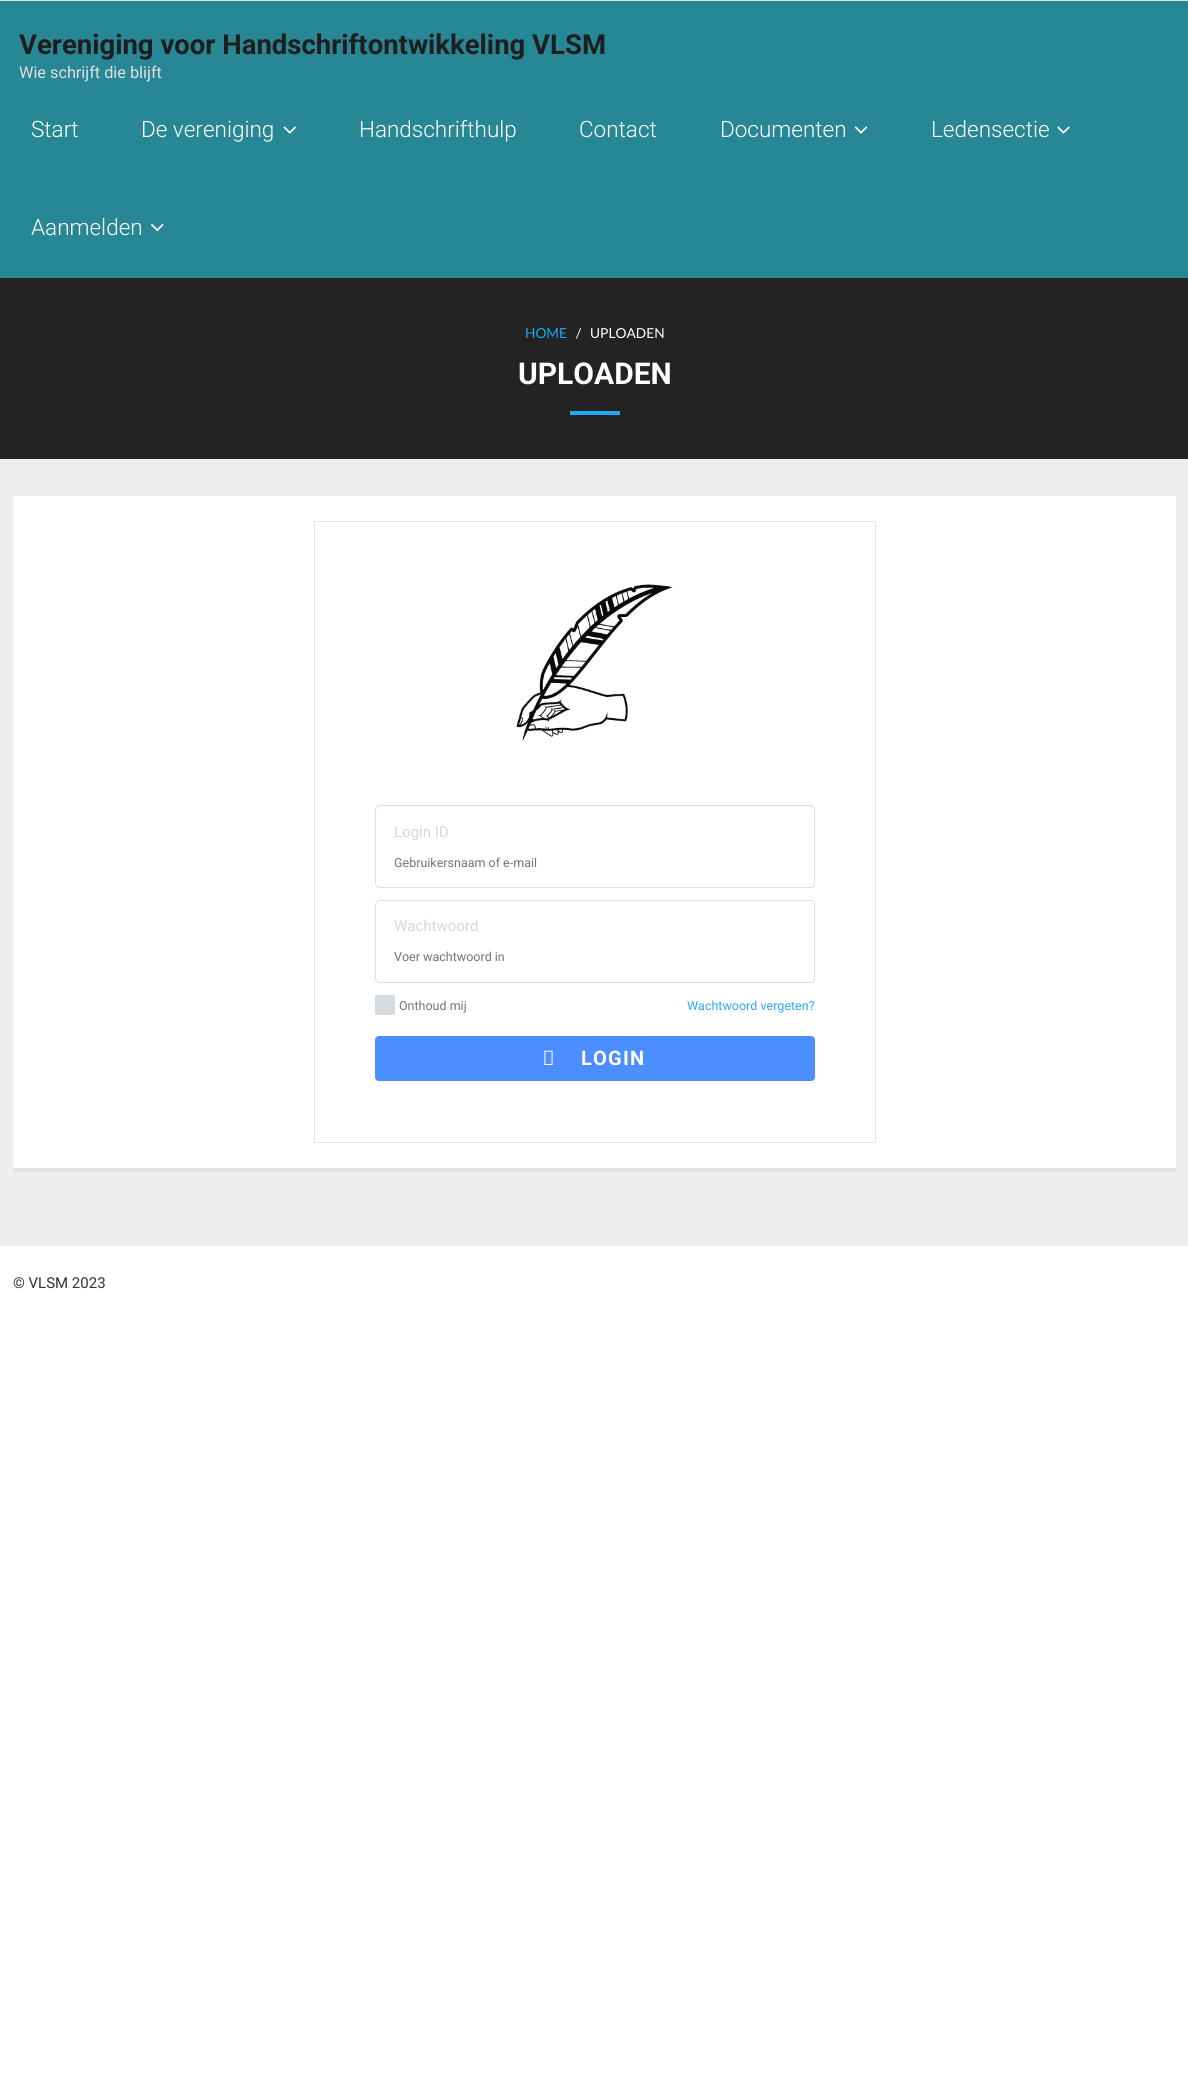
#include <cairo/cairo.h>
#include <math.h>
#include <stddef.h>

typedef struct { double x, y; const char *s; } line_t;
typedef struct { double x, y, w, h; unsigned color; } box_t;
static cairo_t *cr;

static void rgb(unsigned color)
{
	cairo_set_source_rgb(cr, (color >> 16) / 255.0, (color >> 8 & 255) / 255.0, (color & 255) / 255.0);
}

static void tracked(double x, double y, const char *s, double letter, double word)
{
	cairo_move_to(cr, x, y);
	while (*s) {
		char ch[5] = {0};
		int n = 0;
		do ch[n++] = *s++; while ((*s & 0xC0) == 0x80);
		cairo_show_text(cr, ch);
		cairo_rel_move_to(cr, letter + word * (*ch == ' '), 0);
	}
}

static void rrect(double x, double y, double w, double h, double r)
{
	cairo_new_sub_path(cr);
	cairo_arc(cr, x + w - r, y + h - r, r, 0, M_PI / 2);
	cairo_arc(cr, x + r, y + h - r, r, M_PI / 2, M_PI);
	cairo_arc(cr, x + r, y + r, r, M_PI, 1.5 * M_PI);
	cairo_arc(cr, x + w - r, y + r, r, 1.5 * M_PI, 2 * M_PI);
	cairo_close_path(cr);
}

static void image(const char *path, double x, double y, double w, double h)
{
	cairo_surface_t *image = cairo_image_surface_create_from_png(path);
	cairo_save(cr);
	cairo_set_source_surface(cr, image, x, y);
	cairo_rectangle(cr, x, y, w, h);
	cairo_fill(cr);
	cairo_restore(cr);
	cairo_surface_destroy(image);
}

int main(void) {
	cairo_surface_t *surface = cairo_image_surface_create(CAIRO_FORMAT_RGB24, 1188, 2082);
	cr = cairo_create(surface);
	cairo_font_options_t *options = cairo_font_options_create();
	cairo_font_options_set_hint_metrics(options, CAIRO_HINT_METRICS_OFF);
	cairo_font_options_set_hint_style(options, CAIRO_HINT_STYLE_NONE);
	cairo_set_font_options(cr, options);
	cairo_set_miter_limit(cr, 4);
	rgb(0xffffff);
	cairo_paint(cr);
	{
		static const box_t items[] = {
			{0, 459, 1188, 787, 0xeeeeee},
			{0, 0, 1188, 1, 0xdddddd},
			{0, 1, 1188, 277, 0x278795},
		};
		for (size_t i = 0; i < sizeof items / sizeof *items; i++) {
			rgb(items[i].color);
			cairo_rectangle(cr, items[i].x, items[i].y, items[i].w, items[i].h);
			cairo_fill(cr);
		}
	}
	image("img/1.png", 283, 126, 13, 8);
	image("img/2.png", 854, 126, 14, 8);
	image("img/3.png", 1057, 126, 13, 8);
	image("img/4.png", 151, 224, 13, 8);
	{
		static const box_t items[] = {
			{0, 278, 1188, 181, 0x232323},
			{570, 411, 50, 4, 0x1eaaf1},
			{13, 496, 1163, 672, 0xffffff},
			{13, 1168, 1163, 4, 0xe2e2e2},
		};
		for (size_t i = 0; i < sizeof items / sizeof *items; i++) {
			rgb(items[i].color);
			cairo_rectangle(cr, items[i].x, items[i].y, items[i].w, items[i].h);
			cairo_fill(cr);
		}
	}
	cairo_rectangle(cr, 314.5, 521.5, 561, 621);
	rgb(0xe2e3e5);
	cairo_set_line_width(cr, 1);
	cairo_stroke(cr);
	image("img/5.png", 516, 584, 157, 157);
	rrect(375.5, 805.5, 439, 82, 4.5);
	rgb(0xdddddd);
	cairo_stroke(cr);
	rrect(375.5, 900.5, 439, 82, 4.5);
	cairo_stroke(cr);
	rgb(0xd5dbde);
	rrect(375.5, 995.5, 19, 19, 1.5);
	cairo_fill_preserve(cr);
	cairo_stroke(cr);
	rgb(0x4a8eff);
	rrect(375.5, 1036.5, 439, 44, 3.5);
	cairo_fill_preserve(cr);
	cairo_stroke(cr);
	image("img/6.png", 544, 1050, 9, 15);
	cairo_select_font_face(cr, "Roboto", CAIRO_FONT_SLANT_NORMAL, CAIRO_FONT_WEIGHT_BOLD);
	cairo_set_font_size(cr, 27.5);
	rgb(0x1e1e1e);
	cairo_move_to(cr, 19, 54);
	cairo_show_text(cr, "Vereniging voor Handschriftontwikkeling VLSM");
	cairo_select_font_face(cr, "Roboto", CAIRO_FONT_SLANT_NORMAL, CAIRO_FONT_WEIGHT_NORMAL);
	cairo_set_font_size(cr, 16.25);
	rgb(0xe0e0e0);
	cairo_move_to(cr, 19, 78);
	cairo_show_text(cr, "Wie schrijft die blijft");
	cairo_select_font_face(cr, "Roboto Light", CAIRO_FONT_SLANT_NORMAL, CAIRO_FONT_WEIGHT_NORMAL);
	cairo_set_font_size(cr, 22.5);
	rgb(0xffffff);
	{
		static const line_t items[] = {
			{31, 137, "Start"},
			{141, 137, "De vereniging"},
			{359, 137, "Handschrifthulp"},
			{579, 137, "Contact"},
			{720, 137, "Documenten"},
			{931, 137, "Ledensectie"},
			{31, 235, "Aanmelden"},
		};
		for (size_t i = 0; i < sizeof items / sizeof *items; i++) {
			cairo_move_to(cr, items[i].x, items[i].y);
			cairo_show_text(cr, items[i].s);
		}
	}
	cairo_select_font_face(cr, "Lato", CAIRO_FONT_SLANT_NORMAL, CAIRO_FONT_WEIGHT_NORMAL);
	cairo_set_font_size(cr, 13.75);
	rgb(0x1eaaf1);
	cairo_move_to(cr, 525, 338);
	cairo_show_text(cr, "HOME");
	rgb(0xffffff);
	cairo_move_to(cr, 576, 338);
	cairo_show_text(cr, "/");
	cairo_move_to(cr, 590, 338);
	cairo_show_text(cr, "UPLOADEN");
	cairo_select_font_face(cr, "Roboto", CAIRO_FONT_SLANT_NORMAL, CAIRO_FONT_WEIGHT_BOLD);
	cairo_set_font_size(cr, 30);
	cairo_move_to(cr, 518, 384);
	cairo_show_text(cr, "UPLOADEN");
	cairo_select_font_face(cr, "Roboto", CAIRO_FONT_SLANT_NORMAL, CAIRO_FONT_WEIGHT_NORMAL);
	cairo_set_font_size(cr, 15);
	rgb(0xd6d6d6);
	cairo_move_to(cr, 394, 837);
	cairo_show_text(cr, "Login ID");
	cairo_set_font_size(cr, 12.5);
	rgb(0x6c757d);
	cairo_move_to(cr, 394, 867);
	cairo_show_text(cr, "Gebruikersnaam of e-mail");
	cairo_set_font_size(cr, 15);
	rgb(0xd6d6d6);
	cairo_move_to(cr, 394, 931);
	cairo_show_text(cr, "Wachtwoord");
	cairo_set_font_size(cr, 12.5);
	rgb(0x6c757d);
	cairo_move_to(cr, 394, 961);
	cairo_show_text(cr, "Voer wachtwoord in");
	cairo_move_to(cr, 399, 1010);
	cairo_show_text(cr, "Onthoud mij");
	rgb(0x2ca8ff);
	cairo_move_to(cr, 687, 1010);
	cairo_show_text(cr, "Wachtwoord vergeten?");
	cairo_select_font_face(cr, "Roboto", CAIRO_FONT_SLANT_NORMAL, CAIRO_FONT_WEIGHT_BOLD);
	cairo_set_font_size(cr, 20);
	rgb(0xffffff);
	tracked(581, 1065, "LOGIN", 1.25, 0);
	cairo_select_font_face(cr, "Roboto", CAIRO_FONT_SLANT_NORMAL, CAIRO_FONT_WEIGHT_NORMAL);
	cairo_set_font_size(cr, 15);
	rgb(0x333333);
	cairo_move_to(cr, 13, 1288);
	cairo_show_text(cr, "© VLSM 2023");
	cairo_surface_write_to_png(surface, "page.png");
	cairo_font_options_destroy(options);
	cairo_destroy(cr);
	cairo_surface_destroy(surface);
	return 0;
}
